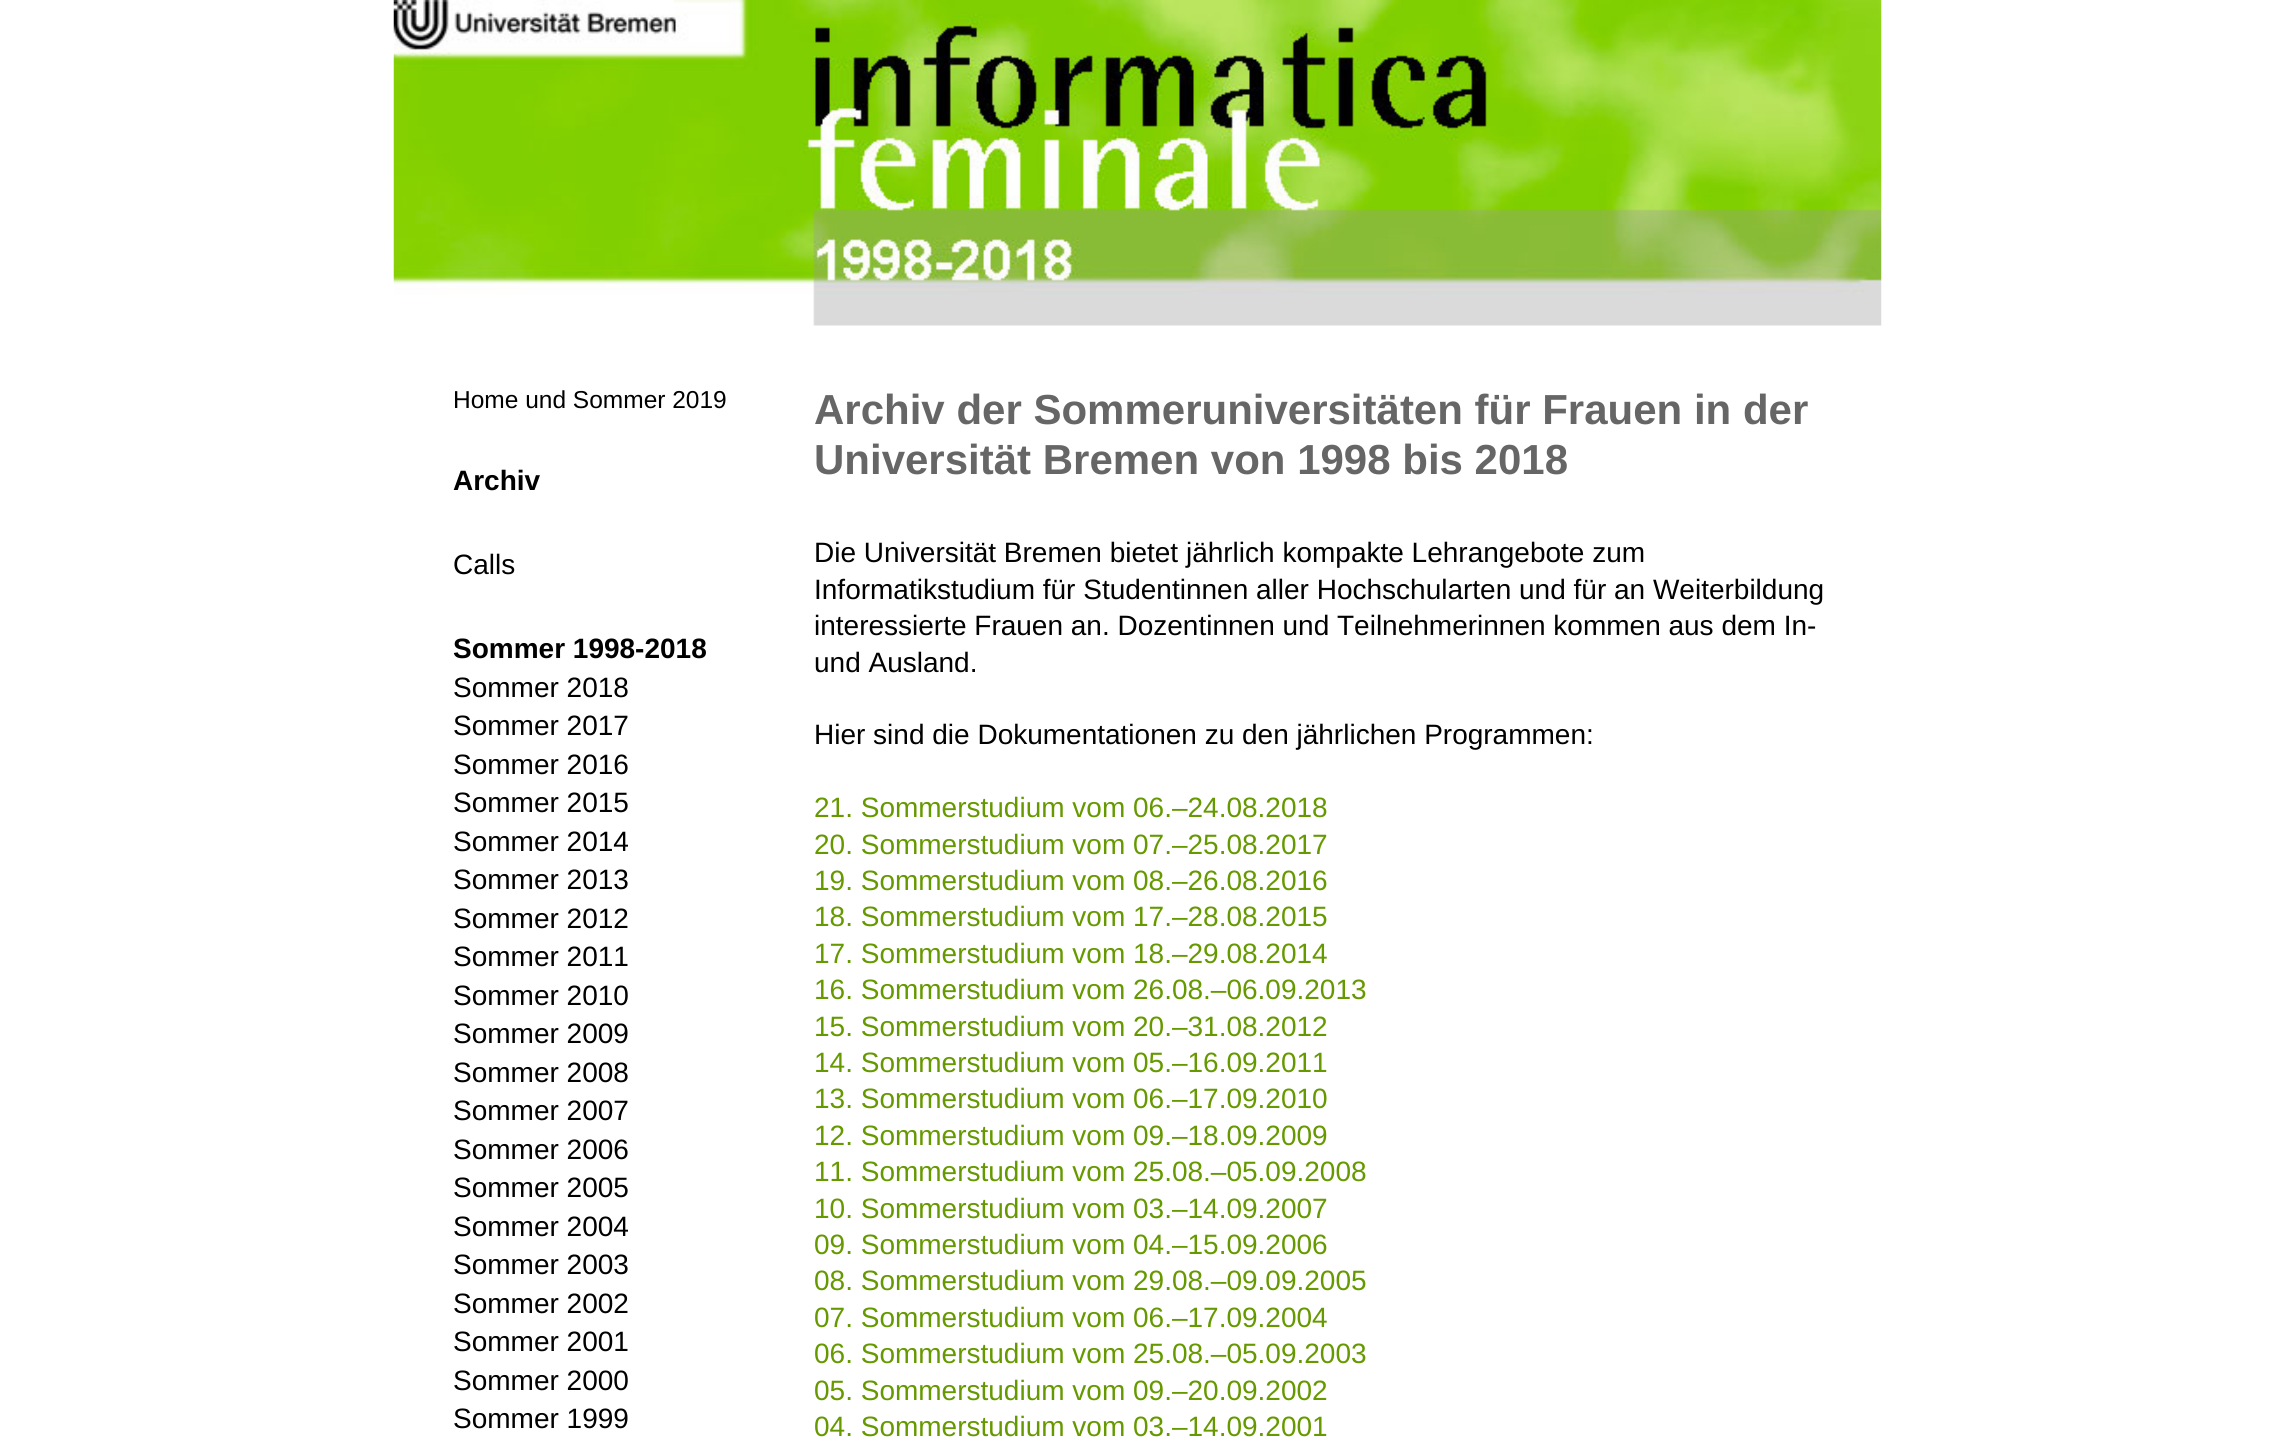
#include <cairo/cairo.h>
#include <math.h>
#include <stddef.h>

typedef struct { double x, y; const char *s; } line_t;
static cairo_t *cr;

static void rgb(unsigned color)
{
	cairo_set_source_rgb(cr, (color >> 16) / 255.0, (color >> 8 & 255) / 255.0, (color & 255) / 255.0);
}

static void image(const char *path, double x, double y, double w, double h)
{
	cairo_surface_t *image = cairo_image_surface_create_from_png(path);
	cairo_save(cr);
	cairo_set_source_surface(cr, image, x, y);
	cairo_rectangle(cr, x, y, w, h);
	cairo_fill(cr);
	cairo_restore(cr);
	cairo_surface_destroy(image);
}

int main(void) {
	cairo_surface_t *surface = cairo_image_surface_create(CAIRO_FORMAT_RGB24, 2274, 1443);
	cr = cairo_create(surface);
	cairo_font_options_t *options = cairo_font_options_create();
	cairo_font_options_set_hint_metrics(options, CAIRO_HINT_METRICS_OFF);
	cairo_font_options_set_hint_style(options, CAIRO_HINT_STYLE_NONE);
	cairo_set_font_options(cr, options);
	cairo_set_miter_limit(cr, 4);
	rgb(0xffffff);
	cairo_paint(cr);
	image("img/1.png", 393, 0, 1489, 326);
	cairo_select_font_face(cr, "Liberation Sans", CAIRO_FONT_SLANT_NORMAL, CAIRO_FONT_WEIGHT_NORMAL);
	cairo_set_font_size(cr, 24.5);
	rgb(0x000000);
	cairo_move_to(cr, 453, 408);
	cairo_show_text(cr, "Home und Sommer 2019");
	cairo_select_font_face(cr, "Liberation Sans", CAIRO_FONT_SLANT_NORMAL, CAIRO_FONT_WEIGHT_BOLD);
	cairo_set_font_size(cr, 28);
	cairo_move_to(cr, 453, 490);
	cairo_show_text(cr, "Archiv");
	cairo_select_font_face(cr, "Liberation Sans", CAIRO_FONT_SLANT_NORMAL, CAIRO_FONT_WEIGHT_NORMAL);
	cairo_move_to(cr, 453, 574);
	cairo_show_text(cr, "Calls");
	cairo_select_font_face(cr, "Liberation Sans", CAIRO_FONT_SLANT_NORMAL, CAIRO_FONT_WEIGHT_BOLD);
	cairo_move_to(cr, 453, 658);
	cairo_show_text(cr, "Sommer 1998-2018");
	cairo_select_font_face(cr, "Liberation Sans", CAIRO_FONT_SLANT_NORMAL, CAIRO_FONT_WEIGHT_NORMAL);
	{
		static const line_t items[] = {
			{453, 697, "Sommer 2018"},
			{453, 735, "Sommer 2017"},
			{453, 774, "Sommer 2016"},
			{453, 812, "Sommer 2015"},
			{453, 851, "Sommer 2014"},
			{453, 889, "Sommer 2013"},
			{453, 928, "Sommer 2012"},
			{453, 966, "Sommer 2011"},
			{453, 1005, "Sommer 2010"},
			{453, 1043, "Sommer 2009"},
			{453, 1082, "Sommer 2008"},
			{453, 1120, "Sommer 2007"},
			{453, 1159, "Sommer 2006"},
			{453, 1197, "Sommer 2005"},
			{453, 1236, "Sommer 2004"},
			{453, 1274, "Sommer 2003"},
			{453, 1313, "Sommer 2002"},
			{453, 1351, "Sommer 2001"},
			{453, 1390, "Sommer 2000"},
			{453, 1428, "Sommer 1999"},
		};
		for (size_t i = 0; i < sizeof items / sizeof *items; i++) {
			cairo_move_to(cr, items[i].x, items[i].y);
			cairo_show_text(cr, items[i].s);
		}
	}
	cairo_select_font_face(cr, "Liberation Sans", CAIRO_FONT_SLANT_NORMAL, CAIRO_FONT_WEIGHT_BOLD);
	cairo_set_font_size(cr, 42);
	rgb(0x666666);
	cairo_move_to(cr, 814, 424);
	cairo_show_text(cr, "Archiv der Sommeruniversitäten für Frauen in der");
	cairo_move_to(cr, 814, 474);
	cairo_show_text(cr, "Universität Bremen von 1998 bis 2018");
	cairo_select_font_face(cr, "Liberation Sans", CAIRO_FONT_SLANT_NORMAL, CAIRO_FONT_WEIGHT_NORMAL);
	cairo_set_font_size(cr, 28);
	rgb(0x000000);
	{
		static const line_t items[] = {
			{814, 562, "Die Universität Bremen bietet jährlich kompakte Lehrangebote zum"},
			{814, 599, "Informatikstudium für Studentinnen aller Hochschularten und für an Weiterbildung"},
			{814, 635, "interessierte Frauen an. Dozentinnen und Teilnehmerinnen kommen aus dem In-"},
			{814, 672, "und Ausland."},
			{814, 744, "Hier sind die Dokumentationen zu den jährlichen Programmen:"},
		};
		for (size_t i = 0; i < sizeof items / sizeof *items; i++) {
			cairo_move_to(cr, items[i].x, items[i].y);
			cairo_show_text(cr, items[i].s);
		}
	}
	rgb(0x669900);
	{
		static const line_t items[] = {
			{814, 817, "21. Sommerstudium vom 06.–24.08.2018"},
			{814, 854, "20. Sommerstudium vom 07.–25.08.2017"},
			{814, 890, "19. Sommerstudium vom 08.–26.08.2016"},
			{814, 926, "18. Sommerstudium vom 17.–28.08.2015"},
			{814, 963, "17. Sommerstudium vom 18.–29.08.2014"},
			{814, 999, "16. Sommerstudium vom 26.08.–06.09.2013"},
			{814, 1036, "15. Sommerstudium vom 20.–31.08.2012"},
			{814, 1072, "14. Sommerstudium vom 05.–16.09.2011"},
			{814, 1108, "13. Sommerstudium vom 06.–17.09.2010"},
			{814, 1145, "12. Sommerstudium vom 09.–18.09.2009"},
			{814, 1181, "11. Sommerstudium vom 25.08.–05.09.2008"},
			{814, 1218, "10. Sommerstudium vom 03.–14.09.2007"},
			{814, 1254, "09. Sommerstudium vom 04.–15.09.2006"},
			{814, 1290, "08. Sommerstudium vom 29.08.–09.09.2005"},
			{814, 1327, "07. Sommerstudium vom 06.–17.09.2004"},
			{814, 1363, "06. Sommerstudium vom 25.08.–05.09.2003"},
			{814, 1400, "05. Sommerstudium vom 09.–20.09.2002"},
			{814, 1436, "04. Sommerstudium vom 03.–14.09.2001"},
		};
		for (size_t i = 0; i < sizeof items / sizeof *items; i++) {
			cairo_move_to(cr, items[i].x, items[i].y);
			cairo_show_text(cr, items[i].s);
		}
	}
	cairo_surface_write_to_png(surface, "page.png");
	cairo_font_options_destroy(options);
	cairo_destroy(cr);
	cairo_surface_destroy(surface);
	return 0;
}
